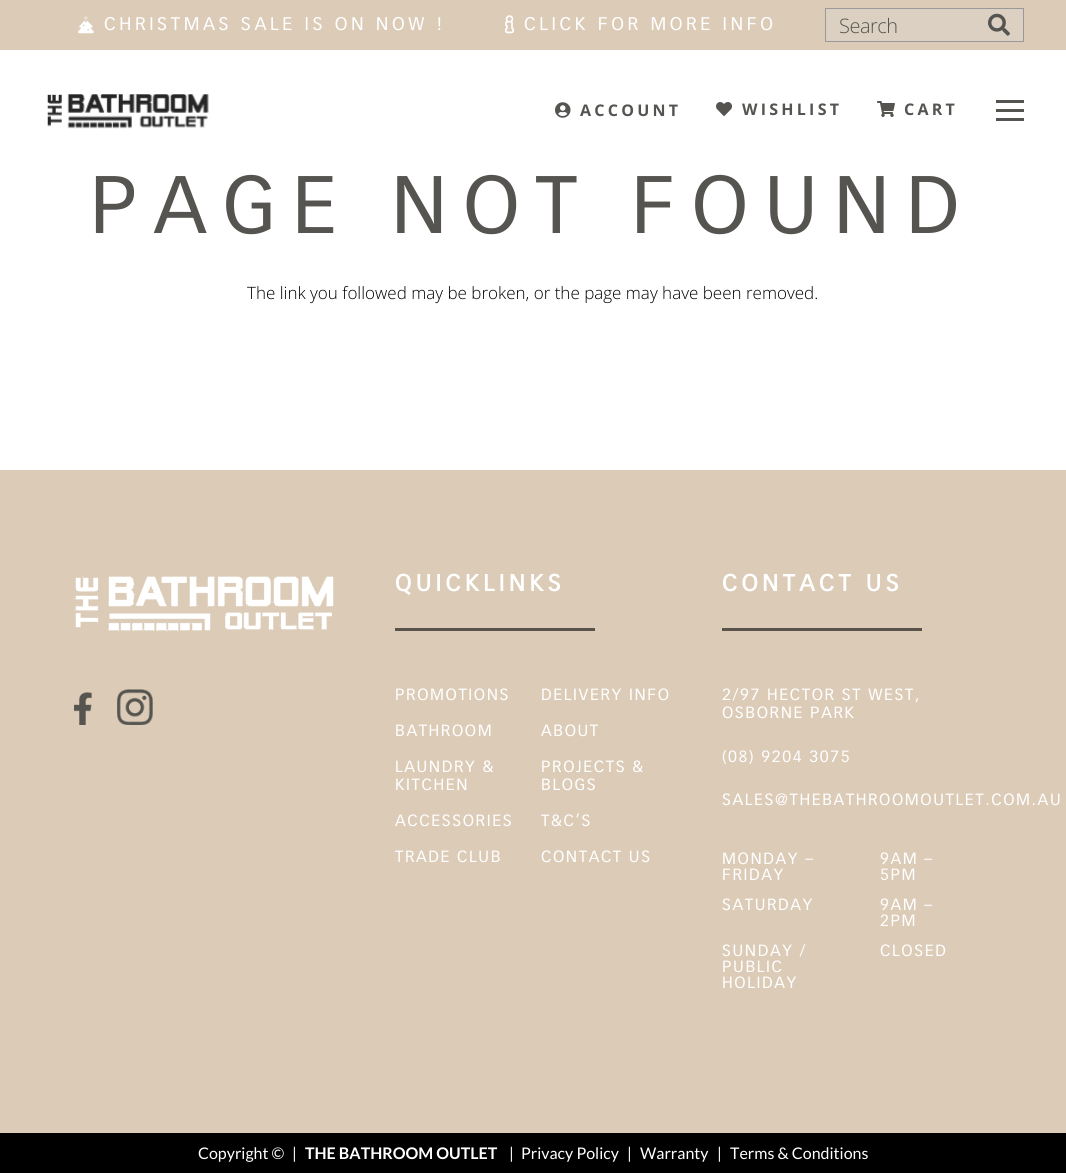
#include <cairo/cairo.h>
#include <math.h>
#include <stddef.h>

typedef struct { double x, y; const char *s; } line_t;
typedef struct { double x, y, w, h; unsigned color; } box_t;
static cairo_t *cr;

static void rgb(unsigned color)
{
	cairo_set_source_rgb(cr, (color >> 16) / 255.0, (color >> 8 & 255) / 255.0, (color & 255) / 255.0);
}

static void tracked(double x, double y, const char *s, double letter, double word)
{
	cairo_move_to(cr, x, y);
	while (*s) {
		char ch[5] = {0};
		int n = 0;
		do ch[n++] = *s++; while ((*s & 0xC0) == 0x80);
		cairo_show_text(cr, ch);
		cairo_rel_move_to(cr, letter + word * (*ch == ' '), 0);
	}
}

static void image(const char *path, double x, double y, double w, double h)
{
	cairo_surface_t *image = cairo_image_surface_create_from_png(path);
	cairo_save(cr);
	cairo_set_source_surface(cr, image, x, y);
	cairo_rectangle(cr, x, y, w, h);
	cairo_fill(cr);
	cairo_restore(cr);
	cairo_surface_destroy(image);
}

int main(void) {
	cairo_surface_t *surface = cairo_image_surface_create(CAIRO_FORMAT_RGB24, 1066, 1173);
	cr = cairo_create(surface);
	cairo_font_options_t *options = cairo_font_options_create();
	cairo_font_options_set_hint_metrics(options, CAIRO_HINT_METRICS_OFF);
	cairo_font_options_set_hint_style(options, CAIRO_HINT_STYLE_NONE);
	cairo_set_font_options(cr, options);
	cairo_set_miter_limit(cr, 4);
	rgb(0xffffff);
	cairo_paint(cr);
	rgb(0xdbcbb7);
	cairo_rectangle(cr, 0, 0, 1066, 50);
	cairo_fill(cr);
	image("img/2.png", 78, 20, 16, 14);
	image("img/1.png", 83, 15, 6, 6);
	image("img/3.png", 505, 15, 9, 19);
	rgb(0xdbd0c1);
	cairo_rectangle(cr, 825.5, 8.5, 198, 33);
	cairo_fill_preserve(cr);
	rgb(0x999999);
	cairo_set_line_width(cr, 1);
	cairo_stroke(cr);
	image("img/4.png", 988, 13, 22, 23);
	image("img/5.png", 47, 94, 162, 35);
	image("img/6.png", 555, 102, 16, 16);
	image("img/7.png", 716, 102, 16, 14);
	image("img/8.png", 877, 101, 18, 16);
	{
		static const box_t items[] = {
			{996, 109, 28, 3, 0x555450},
			{996, 100, 28, 3, 0x555450},
			{996, 118, 28, 3, 0x555450},
			{0, 470, 1066, 663, 0xdbcbb7},
		};
		for (size_t i = 0; i < sizeof items / sizeof *items; i++) {
			rgb(items[i].color);
			cairo_rectangle(cr, items[i].x, items[i].y, items[i].w, items[i].h);
			cairo_fill(cr);
		}
	}
	image("img/9.png", 74, 576, 260, 56);
	image("img/10.png", 74, 692, 18, 33);
	image("img/11.png", 117, 689, 36, 36);
	{
		static const box_t items[] = {
			{395, 628, 200, 3, 0x5a534b},
			{722, 628, 200, 3, 0x5a534b},
			{0, 1133, 1066, 40, 0x000000},
		};
		for (size_t i = 0; i < sizeof items / sizeof *items; i++) {
			rgb(items[i].color);
			cairo_rectangle(cr, items[i].x, items[i].y, items[i].w, items[i].h);
			cairo_fill(cr);
		}
	}
	cairo_select_font_face(cr, "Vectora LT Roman", CAIRO_FONT_SLANT_NORMAL, CAIRO_FONT_WEIGHT_NORMAL);
	cairo_set_font_size(cr, 18);
	rgb(0xffffff);
	tracked(104, 30, "CHRISTMAS SALE IS ON NOW !", 3.6, 0);
	tracked(524, 30, "CLICK FOR MORE INFO", 3.6, 0);
	cairo_select_font_face(cr, "Open Sans Light", CAIRO_FONT_SLANT_NORMAL, CAIRO_FONT_WEIGHT_NORMAL);
	cairo_set_font_size(cr, 20);
	rgb(0x555450);
	tracked(839, 33, "Search", -0.5, 0);
	cairo_select_font_face(cr, "Open Sans", CAIRO_FONT_SLANT_NORMAL, CAIRO_FONT_WEIGHT_BOLD);
	cairo_set_font_size(cr, 16);
	{
		static const line_t items[] = {
			{580, 116, "ACCOUNT"},
			{742, 115, "WISHLIST"},
			{904, 115, "CART"},
		};
		for (size_t i = 0; i < sizeof items / sizeof *items; i++) {
			tracked(items[i].x, items[i].y, items[i].s, 3.25, 0);
		}
	}
	cairo_select_font_face(cr, "Vectora LT Roman", CAIRO_FONT_SLANT_NORMAL, CAIRO_FONT_WEIGHT_NORMAL);
	cairo_set_font_size(cr, 80);
	tracked(90, 233, "PAGE NOT FOUND", 16, 0);
	cairo_select_font_face(cr, "Open Sans Light", CAIRO_FONT_SLANT_NORMAL, CAIRO_FONT_WEIGHT_NORMAL);
	cairo_set_font_size(cr, 17);
	rgb(0x000000);
	cairo_move_to(cr, 247, 299);
	cairo_show_text(cr, "The link you followed may be broken, or the page may have been removed.");
	cairo_select_font_face(cr, "Vectora LT Roman", CAIRO_FONT_SLANT_NORMAL, CAIRO_FONT_WEIGHT_BOLD);
	cairo_set_font_size(cr, 23);
	rgb(0xffffff);
	tracked(395, 591, "QUICKLINKS", 4.5, 0);
	cairo_select_font_face(cr, "Vectora LT Roman", CAIRO_FONT_SLANT_NORMAL, CAIRO_FONT_WEIGHT_NORMAL);
	cairo_set_font_size(cr, 16);
	{
		static const line_t items[] = {
			{395, 700, "PROMOTIONS"},
			{541, 700, "DELIVERY INFO"},
			{395, 736, "BATHROOM"},
			{541, 736, "ABOUT"},
			{395, 772, "LAUNDRY &"},
			{395, 790, "KITCHEN"},
			{541, 772, "PROJECTS &"},
			{541, 790, "BLOGS"},
			{395, 826, "ACCESSORIES"},
			{541, 826, "T&C’S"},
			{395, 862, "TRADE CLUB"},
			{541, 862, "CONTACT US"},
		};
		for (size_t i = 0; i < sizeof items / sizeof *items; i++) {
			tracked(items[i].x, items[i].y, items[i].s, 1.6, 0);
		}
	}
	cairo_select_font_face(cr, "Vectora LT Roman", CAIRO_FONT_SLANT_NORMAL, CAIRO_FONT_WEIGHT_BOLD);
	cairo_set_font_size(cr, 23);
	tracked(722, 591, "CONTACT US", 4.5, 0);
	cairo_select_font_face(cr, "Vectora LT Roman", CAIRO_FONT_SLANT_NORMAL, CAIRO_FONT_WEIGHT_NORMAL);
	cairo_set_font_size(cr, 16);
	{
		static const line_t items[] = {
			{722, 700, "2/97 HECTOR ST WEST,"},
			{722, 718, "OSBORNE PARK"},
			{722, 762, "(08) 9204 3075"},
			{722, 805, "SALES@THEBATHROOMOUTLET.COM.AU"},
			{722, 864, "MONDAY –"},
			{722, 880, "FRIDAY"},
			{880, 864, "9AM –"},
			{880, 880, "5PM"},
			{722, 910, "SATURDAY"},
			{880, 910, "9AM –"},
			{880, 926, "2PM"},
			{722, 956, "SUNDAY /"},
			{722, 972, "PUBLIC"},
			{722, 988, "HOLIDAY"},
			{880, 956, "CLOSED"},
		};
		for (size_t i = 0; i < sizeof items / sizeof *items; i++) {
			tracked(items[i].x, items[i].y, items[i].s, 1.6, 0);
		}
	}
	cairo_select_font_face(cr, "Lato", CAIRO_FONT_SLANT_NORMAL, CAIRO_FONT_WEIGHT_NORMAL);
	cairo_move_to(cr, 198, 1159);
	cairo_show_text(cr, "Copyright ©");
	cairo_move_to(cr, 292, 1159);
	cairo_show_text(cr, "|");
	cairo_select_font_face(cr, "Lato", CAIRO_FONT_SLANT_NORMAL, CAIRO_FONT_WEIGHT_BOLD);
	cairo_move_to(cr, 305, 1159);
	cairo_show_text(cr, "THE BATHROOM OUTLET");
	cairo_select_font_face(cr, "Lato", CAIRO_FONT_SLANT_NORMAL, CAIRO_FONT_WEIGHT_NORMAL);
	{
		static const line_t items[] = {
			{509, 1159, "|"},
			{521, 1159, "Privacy Policy"},
			{627, 1159, "|"},
			{640, 1159, "Warranty"},
			{717, 1159, "|"},
			{730, 1159, "Terms & Conditions"},
		};
		for (size_t i = 0; i < sizeof items / sizeof *items; i++) {
			cairo_move_to(cr, items[i].x, items[i].y);
			cairo_show_text(cr, items[i].s);
		}
	}
	cairo_surface_write_to_png(surface, "page.png");
	cairo_font_options_destroy(options);
	cairo_destroy(cr);
	cairo_surface_destroy(surface);
	return 0;
}
